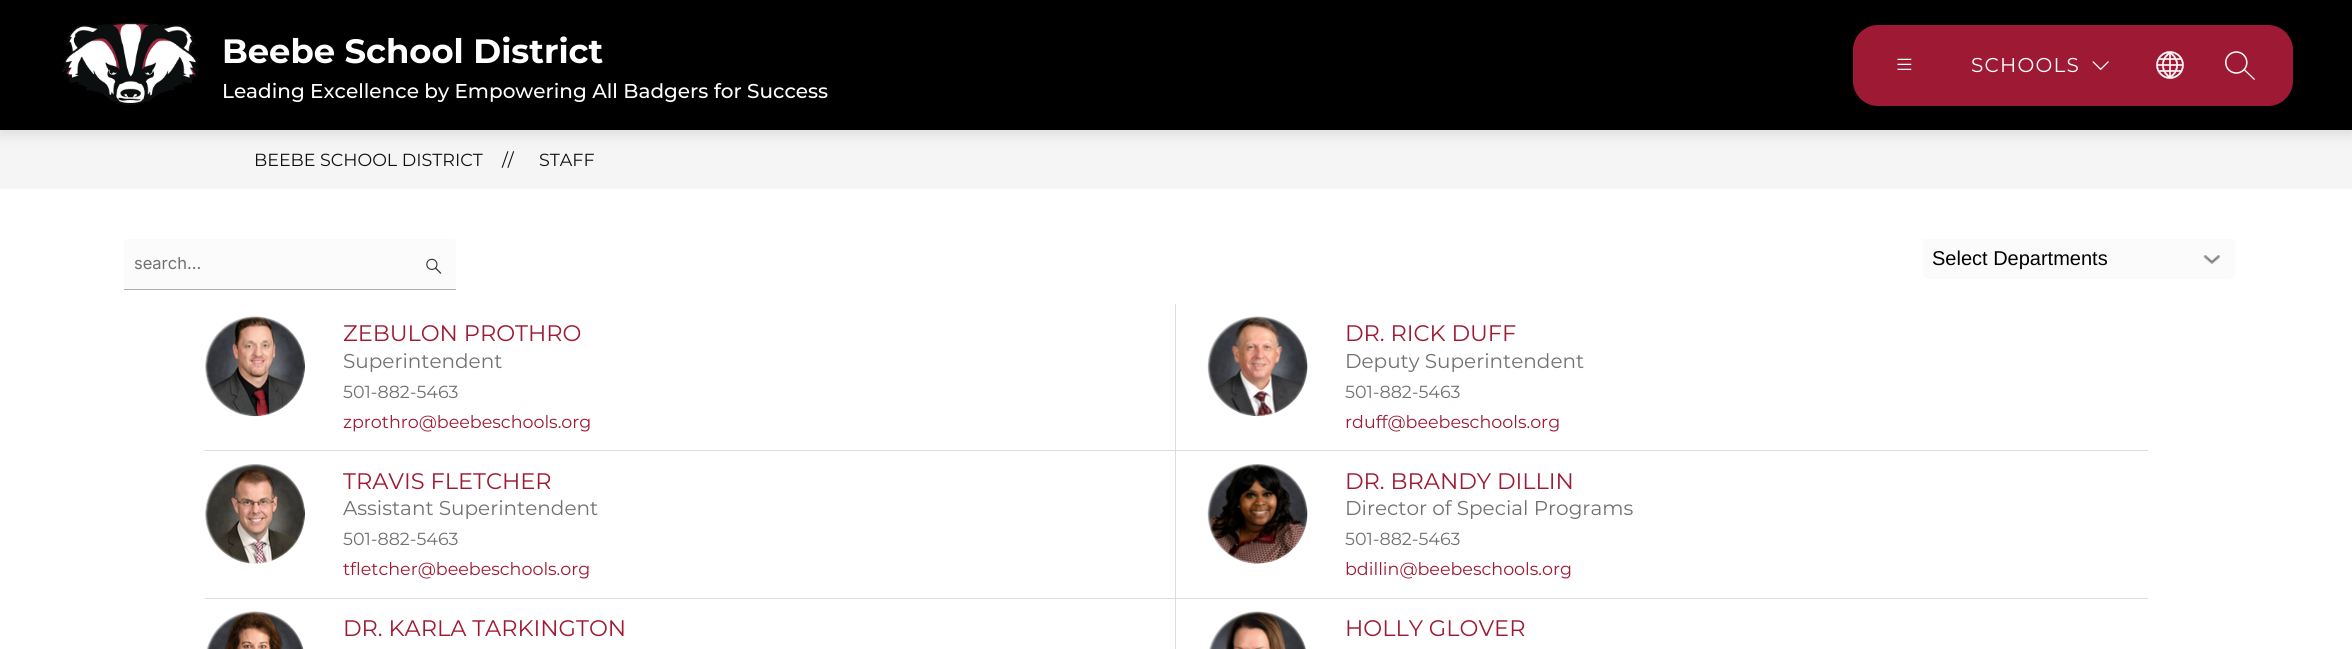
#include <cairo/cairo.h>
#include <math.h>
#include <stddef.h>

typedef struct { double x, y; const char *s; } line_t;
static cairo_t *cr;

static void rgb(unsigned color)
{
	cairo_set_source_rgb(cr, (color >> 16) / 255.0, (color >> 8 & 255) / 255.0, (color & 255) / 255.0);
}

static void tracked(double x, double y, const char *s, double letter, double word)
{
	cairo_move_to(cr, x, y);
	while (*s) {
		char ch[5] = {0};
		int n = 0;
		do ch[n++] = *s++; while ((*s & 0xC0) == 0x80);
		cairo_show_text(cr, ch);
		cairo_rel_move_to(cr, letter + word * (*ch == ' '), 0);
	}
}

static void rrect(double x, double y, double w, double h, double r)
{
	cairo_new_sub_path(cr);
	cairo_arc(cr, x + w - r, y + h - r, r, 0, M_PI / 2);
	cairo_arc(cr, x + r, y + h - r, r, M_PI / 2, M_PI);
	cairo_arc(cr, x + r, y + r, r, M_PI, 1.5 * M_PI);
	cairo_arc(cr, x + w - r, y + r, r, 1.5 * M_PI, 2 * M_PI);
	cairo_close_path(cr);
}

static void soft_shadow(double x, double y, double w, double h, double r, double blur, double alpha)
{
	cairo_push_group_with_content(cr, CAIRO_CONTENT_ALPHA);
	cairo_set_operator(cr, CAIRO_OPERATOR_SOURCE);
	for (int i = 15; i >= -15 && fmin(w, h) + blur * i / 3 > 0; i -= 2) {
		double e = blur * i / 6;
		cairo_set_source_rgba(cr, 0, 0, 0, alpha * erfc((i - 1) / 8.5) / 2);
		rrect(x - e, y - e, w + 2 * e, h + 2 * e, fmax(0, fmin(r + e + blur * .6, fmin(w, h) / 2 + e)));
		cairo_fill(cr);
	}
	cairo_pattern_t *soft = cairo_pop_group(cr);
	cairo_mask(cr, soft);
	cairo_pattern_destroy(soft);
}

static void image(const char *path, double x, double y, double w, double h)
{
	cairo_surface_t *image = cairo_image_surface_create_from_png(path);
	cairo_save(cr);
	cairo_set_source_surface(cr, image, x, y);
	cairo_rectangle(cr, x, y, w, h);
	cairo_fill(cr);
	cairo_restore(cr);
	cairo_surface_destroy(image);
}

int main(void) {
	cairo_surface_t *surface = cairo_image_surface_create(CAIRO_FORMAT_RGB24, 2352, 649);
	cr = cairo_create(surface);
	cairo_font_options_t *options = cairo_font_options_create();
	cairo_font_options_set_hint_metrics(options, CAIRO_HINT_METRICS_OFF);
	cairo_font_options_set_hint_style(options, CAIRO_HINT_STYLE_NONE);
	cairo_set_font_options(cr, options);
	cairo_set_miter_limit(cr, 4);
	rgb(0xffffff);
	cairo_paint(cr);
	rgb(0xf5f5f5);
	cairo_rectangle(cr, 0, 130, 2352, 59);
	cairo_fill(cr);
	rgb(0x000000);
	soft_shadow(0, 5, 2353, 130, 0, 6, 0.1);
	rgb(0x000000);
	cairo_rectangle(cr, 0, 0, 2352, 130);
	cairo_fill(cr);
	image("img/1.png", 62, 22, 137, 83);
	rgb(0x9e1a34);
	rrect(1853, 25, 440, 81, 25);
	cairo_fill(cr);
	image("img/2.png", 1897, 58, 15, 12);
	image("img/3.png", 2092, 61, 17, 9);
	image("img/4.png", 2156, 51, 28, 28);
	image("img/5.png", 2225, 51, 30, 29);
	rgb(0xfbfbfb);
	cairo_new_path(cr);
	cairo_move_to(cr, 129, 239);
	cairo_line_to(cr, 451, 239);
	cairo_curve_to(cr, 454, 239, 456, 241, 456, 244);
	cairo_line_to(cr, 456, 290);
	cairo_line_to(cr, 124, 290);
	cairo_line_to(cr, 124, 244);
	cairo_curve_to(cr, 124, 241, 126, 239, 129, 239);
	cairo_close_path(cr);
	cairo_fill(cr);
	rgb(0xadadad);
	cairo_rectangle(cr, 124, 289, 332, 1);
	cairo_fill(cr);
	image("img/6.png", 426, 258, 16, 16);
	rgb(0xfbfbfb);
	cairo_new_path(cr);
	cairo_move_to(cr, 1923, 239);
	cairo_line_to(cr, 2235, 239);
	cairo_line_to(cr, 2235, 274);
	cairo_curve_to(cr, 2235, 277, 2233, 279, 2230, 279);
	cairo_line_to(cr, 1928, 279);
	cairo_curve_to(cr, 1925, 279, 1923, 277, 1923, 274);
	cairo_close_path(cr);
	cairo_fill(cr);
	image("img/7.png", 2203, 255, 17, 9);
	rgb(0xdddddd);
	cairo_rectangle(cr, 205, 450, 1943, 1);
	cairo_fill(cr);
	cairo_rectangle(cr, 1175, 304, 1, 146);
	cairo_fill(cr);
	image("img/8.png", 205, 316, 100, 101);
	image("img/9.png", 1207, 316, 101, 101);
	cairo_rectangle(cr, 205, 598, 1943, 1);
	cairo_fill(cr);
	cairo_rectangle(cr, 1175, 451, 1, 147);
	cairo_fill(cr);
	image("img/10.png", 205, 464, 100, 100);
	image("img/11.png", 1207, 464, 101, 100);
	cairo_rectangle(cr, 1175, 599, 1, 50);
	cairo_fill(cr);
	image("img/12.png", 206, 611, 98, 38);
	image("img/13.png", 1209, 611, 97, 38);
	cairo_select_font_face(cr, "Montserrat", CAIRO_FONT_SLANT_NORMAL, CAIRO_FONT_WEIGHT_BOLD);
	cairo_set_font_size(cr, 33.75);
	rgb(0xffffff);
	cairo_move_to(cr, 222, 63);
	cairo_show_text(cr, "Beebe School District");
	cairo_select_font_face(cr, "Montserrat Medium", CAIRO_FONT_SLANT_NORMAL, CAIRO_FONT_WEIGHT_NORMAL);
	cairo_set_font_size(cr, 20);
	cairo_move_to(cr, 222, 98);
	cairo_show_text(cr, "Leading Excellence by Empowering All Badgers for Success");
	cairo_select_font_face(cr, "Montserrat", CAIRO_FONT_SLANT_NORMAL, CAIRO_FONT_WEIGHT_NORMAL);
	tracked(1971, 72, "SCHOOLS", 1.25, 0);
	cairo_set_font_size(cr, 17.5);
	rgb(0x111111);
	{
		static const line_t items[] = {
			{254, 166, "BEEBE SCHOOL DISTRICT"},
			{502, 166, "//"},
			{539, 166, "STAFF"},
		};
		for (size_t i = 0; i < sizeof items / sizeof *items; i++) {
			cairo_move_to(cr, items[i].x, items[i].y);
			cairo_show_text(cr, items[i].s);
		}
	}
	cairo_select_font_face(cr, "Inter", CAIRO_FONT_SLANT_NORMAL, CAIRO_FONT_WEIGHT_NORMAL);
	cairo_set_font_size(cr, 16.5);
	rgb(0x717171);
	cairo_move_to(cr, 134, 269);
	cairo_show_text(cr, "search...");
	cairo_select_font_face(cr, "Liberation Sans", CAIRO_FONT_SLANT_NORMAL, CAIRO_FONT_WEIGHT_NORMAL);
	cairo_set_font_size(cr, 20);
	rgb(0x000000);
	cairo_move_to(cr, 1932, 265);
	cairo_show_text(cr, "Select Departments");
	cairo_select_font_face(cr, "Montserrat", CAIRO_FONT_SLANT_NORMAL, CAIRO_FONT_WEIGHT_NORMAL);
	cairo_set_font_size(cr, 22.5);
	rgb(0x9e1a34);
	cairo_move_to(cr, 343, 341);
	cairo_show_text(cr, "ZEBULON PROTHRO");
	cairo_set_font_size(cr, 20);
	rgb(0x717171);
	cairo_move_to(cr, 343, 368);
	cairo_show_text(cr, "Superintendent");
	cairo_set_font_size(cr, 17.5);
	cairo_move_to(cr, 343, 398);
	cairo_show_text(cr, "501-882-5463");
	rgb(0x9e1a34);
	cairo_move_to(cr, 343, 428);
	cairo_show_text(cr, "zprothro@beebeschools.org");
	cairo_set_font_size(cr, 22.5);
	cairo_move_to(cr, 1345, 341);
	cairo_show_text(cr, "DR. RICK DUFF");
	cairo_set_font_size(cr, 20);
	rgb(0x717171);
	cairo_move_to(cr, 1345, 368);
	cairo_show_text(cr, "Deputy Superintendent");
	cairo_set_font_size(cr, 17.5);
	cairo_move_to(cr, 1345, 398);
	cairo_show_text(cr, "501-882-5463");
	rgb(0x9e1a34);
	cairo_move_to(cr, 1345, 428);
	cairo_show_text(cr, "rduff@beebeschools.org");
	cairo_set_font_size(cr, 22.5);
	cairo_move_to(cr, 343, 489);
	cairo_show_text(cr, "TRAVIS FLETCHER");
	cairo_set_font_size(cr, 20);
	rgb(0x717171);
	cairo_move_to(cr, 343, 515);
	cairo_show_text(cr, "Assistant Superintendent");
	cairo_set_font_size(cr, 17.5);
	cairo_move_to(cr, 343, 545);
	cairo_show_text(cr, "501-882-5463");
	rgb(0x9e1a34);
	cairo_move_to(cr, 343, 575);
	cairo_show_text(cr, "tfletcher@beebeschools.org");
	cairo_set_font_size(cr, 22.5);
	cairo_move_to(cr, 1345, 489);
	cairo_show_text(cr, "DR. BRANDY DILLIN");
	cairo_set_font_size(cr, 20);
	rgb(0x717171);
	cairo_move_to(cr, 1345, 515);
	cairo_show_text(cr, "Director of Special Programs");
	cairo_set_font_size(cr, 17.5);
	cairo_move_to(cr, 1345, 545);
	cairo_show_text(cr, "501-882-5463");
	rgb(0x9e1a34);
	cairo_move_to(cr, 1345, 575);
	cairo_show_text(cr, "bdillin@beebeschools.org");
	cairo_set_font_size(cr, 22.5);
	cairo_move_to(cr, 343, 636);
	cairo_show_text(cr, "DR. KARLA TARKINGTON");
	cairo_move_to(cr, 1345, 636);
	cairo_show_text(cr, "HOLLY GLOVER");
	cairo_surface_write_to_png(surface, "page.png");
	cairo_font_options_destroy(options);
	cairo_destroy(cr);
	cairo_surface_destroy(surface);
	return 0;
}
